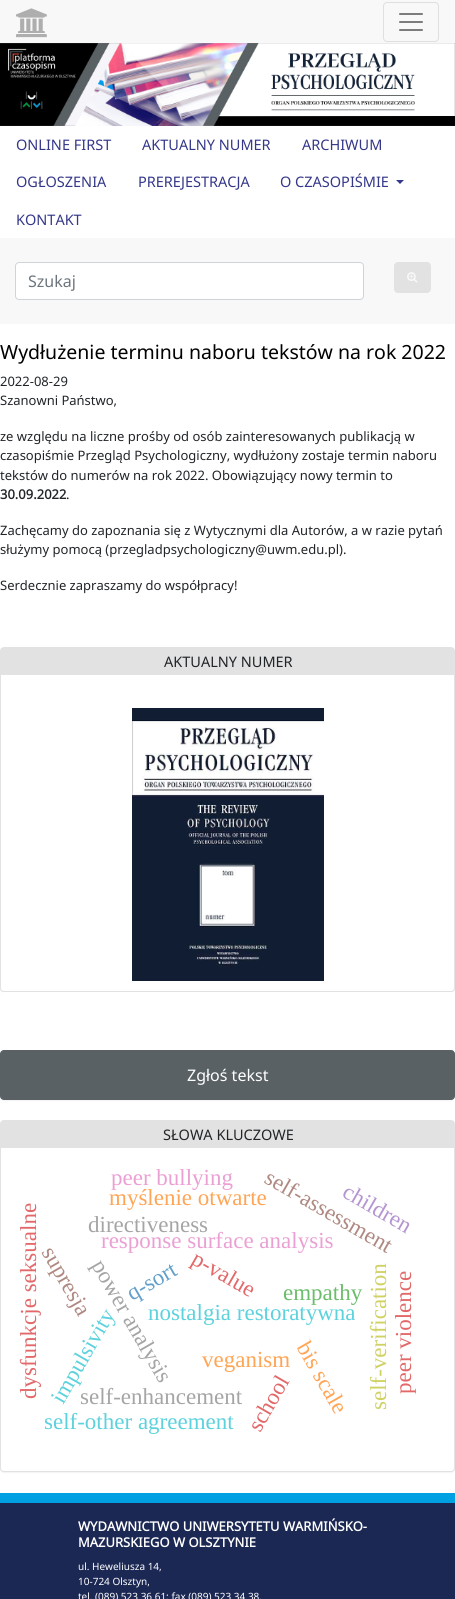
#include <cairo/cairo.h>
#include <math.h>
#include <stddef.h>

typedef struct { double x, y; const char *s; } line_t;
typedef struct { double x, y, w, h; unsigned color; } box_t;
static cairo_t *cr;

static void rgb(unsigned color)
{
	cairo_set_source_rgb(cr, (color >> 16) / 255.0, (color >> 8 & 255) / 255.0, (color & 255) / 255.0);
}

static void rrect(double x, double y, double w, double h, double r)
{
	cairo_new_sub_path(cr);
	cairo_arc(cr, x + w - r, y + h - r, r, 0, M_PI / 2);
	cairo_arc(cr, x + r, y + h - r, r, M_PI / 2, M_PI);
	cairo_arc(cr, x + r, y + r, r, M_PI, 1.5 * M_PI);
	cairo_arc(cr, x + w - r, y + r, r, 1.5 * M_PI, 2 * M_PI);
	cairo_close_path(cr);
}

static void soft_shadow(double x, double y, double w, double h, double r, double blur, double alpha)
{
	cairo_push_group_with_content(cr, CAIRO_CONTENT_ALPHA);
	cairo_set_operator(cr, CAIRO_OPERATOR_SOURCE);
	for (int i = 15; i >= -15 && fmin(w, h) + blur * i / 3 > 0; i -= 2) {
		double e = blur * i / 6;
		cairo_set_source_rgba(cr, 0, 0, 0, alpha * erfc((i - 1) / 8.5) / 2);
		rrect(x - e, y - e, w + 2 * e, h + 2 * e, fmax(0, fmin(r + e + blur * .6, fmin(w, h) / 2 + e)));
		cairo_fill(cr);
	}
	cairo_pattern_t *soft = cairo_pop_group(cr);
	cairo_mask(cr, soft);
	cairo_pattern_destroy(soft);
}

static void image(const char *path, double x, double y, double w, double h)
{
	cairo_surface_t *image = cairo_image_surface_create_from_png(path);
	cairo_save(cr);
	cairo_set_source_surface(cr, image, x, y);
	cairo_rectangle(cr, x, y, w, h);
	cairo_fill(cr);
	cairo_restore(cr);
	cairo_surface_destroy(image);
}

int main(void) {
	cairo_surface_t *surface = cairo_image_surface_create(CAIRO_FORMAT_RGB24, 455, 1599);
	cr = cairo_create(surface);
	cairo_font_options_t *options = cairo_font_options_create();
	cairo_font_options_set_hint_metrics(options, CAIRO_HINT_METRICS_OFF);
	cairo_font_options_set_hint_style(options, CAIRO_HINT_STYLE_NONE);
	cairo_set_font_options(cr, options);
	cairo_set_miter_limit(cr, 4);
	rgb(0xffffff);
	cairo_paint(cr);
	rgb(0xf8f8f8);
	cairo_rectangle(cr, 0, 0, 455, 43);
	cairo_fill(cr);
	image("img/1.png", 16, 8, 31, 30);
	rrect(383.5, 2.5, 55, 39, 3.5);
	rgb(0xdfdfdf);
	cairo_set_line_width(cr, 1);
	cairo_stroke(cr);
	image("img/2.png", 399, 13, 24, 18);
	image("img/3.png", 0, 43, 455, 83);
	rgb(0x353889);
	cairo_new_path(cr);
	cairo_move_to(cr, 396, 180);
	cairo_line_to(cr, 404, 180);
	cairo_line_to(cr, 400, 184);
	cairo_close_path(cr);
	cairo_fill(cr);
	rgb(0xf8f8f8);
	cairo_rectangle(cr, 0, 238, 455, 86);
	cairo_fill(cr);
	rgb(0xffffff);
	rrect(15.5, 262.5, 348, 37, 3.5);
	cairo_fill_preserve(cr);
	rgb(0xced4da);
	cairo_stroke(cr);
	rgb(0xe2e2e2);
	rrect(394, 262, 37, 31, 4);
	cairo_fill(cr);
	image("img/4.png", 407, 272, 11, 11);
	rgb(0x000000);
	soft_shadow(0, 648, 455, 345, 4, 0.5, 0.05);
	rgb(0xffffff);
	rrect(0.5, 647.5, 454, 344, 3.5);
	cairo_fill_preserve(cr);
	rgb(0xe2e2e2);
	cairo_stroke(cr);
	cairo_rectangle(cr, 1, 648, 453, 27);
	cairo_fill(cr);
	image("img/5.png", 132, 708, 192, 273);
	rgb(0x000000);
	soft_shadow(0, 993, 455, 108, 4, 0.5, 0.05);
	rgb(0xffffff);
	rrect(0, 992, 455, 108, 4);
	cairo_fill(cr);
	rgb(0x596164);
	rrect(0.5, 1050.5, 454, 49, 3.5);
	cairo_fill_preserve(cr);
	cairo_stroke(cr);
	rgb(0x000000);
	soft_shadow(0, 1121, 455, 352, 4, 0.5, 0.05);
	rgb(0xffffff);
	rrect(0.5, 1120.5, 454, 351, 3.5);
	cairo_fill_preserve(cr);
	rgb(0xe2e2e2);
	cairo_stroke(cr);
	{
		static const box_t items[] = {
			{1, 1121, 453, 27, 0xe2e2e2},
			{0, 1493, 455, 10, 0x00a0e3},
			{0, 1503, 455, 96, 0x1c2854},
		};
		for (size_t i = 0; i < sizeof items / sizeof *items; i++) {
			rgb(items[i].color);
			cairo_rectangle(cr, items[i].x, items[i].y, items[i].w, items[i].h);
			cairo_fill(cr);
		}
	}
	cairo_select_font_face(cr, "Noto Sans", CAIRO_FONT_SLANT_NORMAL, CAIRO_FONT_WEIGHT_NORMAL);
	cairo_set_font_size(cr, 14.5);
	rgb(0x353889);
	{
		static const line_t items[] = {
			{16, 150, "ONLINE FIRST"},
			{142, 150, "AKTUALNY NUMER"},
			{302, 150, "ARCHIWUM"},
			{16, 187, "OGŁOSZENIA"},
			{138, 187, "PREREJESTRACJA"},
			{280, 187, "O CZASOPIŚMIE"},
			{16, 225, "KONTAKT"},
		};
		for (size_t i = 0; i < sizeof items / sizeof *items; i++) {
			cairo_move_to(cr, items[i].x, items[i].y);
			cairo_show_text(cr, items[i].s);
		}
	}
	cairo_set_font_size(cr, 16);
	rgb(0x6c757d);
	cairo_move_to(cr, 28, 287);
	cairo_show_text(cr, "Szukaj");
	cairo_set_font_size(cr, 19.5);
	rgb(0x000000);
	cairo_move_to(cr, 0, 359);
	cairo_show_text(cr, "Wydłużenie terminu naboru tekstów na rok 2022");
	cairo_set_font_size(cr, 13);
	rgb(0x212529);
	{
		static const line_t items[] = {
			{0, 386, "2022-08-29"},
			{0, 405, "Szanowni Państwo,"},
			{0, 441, "ze względu na liczne prośby od osób zainteresowanych publikacją w"},
			{0, 460, "czasopiśmie Przegląd Psychologiczny, wydłużony zostaje termin naboru"},
			{0, 480, "tekstów do numerów na rok 2022. Obowiązujący nowy termin to"},
		};
		for (size_t i = 0; i < sizeof items / sizeof *items; i++) {
			cairo_move_to(cr, items[i].x, items[i].y);
			cairo_show_text(cr, items[i].s);
		}
	}
	cairo_select_font_face(cr, "Noto Sans", CAIRO_FONT_SLANT_NORMAL, CAIRO_FONT_WEIGHT_BOLD);
	cairo_move_to(cr, 0, 499);
	cairo_show_text(cr, "30.09.2022");
	cairo_select_font_face(cr, "Noto Sans", CAIRO_FONT_SLANT_NORMAL, CAIRO_FONT_WEIGHT_NORMAL);
	{
		static const line_t items[] = {
			{66, 499, "."},
			{0, 535, "Zachęcamy do zapoznania się z Wytycznymi dla Autorów, a w razie pytań"},
			{0, 554, "służymy pomocą (przegladpsychologiczny@uwm.edu.pl)."},
			{0, 590, "Serdecznie zapraszamy do współpracy!"},
		};
		for (size_t i = 0; i < sizeof items / sizeof *items; i++) {
			cairo_move_to(cr, items[i].x, items[i].y);
			cairo_show_text(cr, items[i].s);
		}
	}
	cairo_set_font_size(cr, 14.5);
	cairo_move_to(cr, 164, 667);
	cairo_show_text(cr, "AKTUALNY NUMER");
	cairo_set_font_size(cr, 16);
	rgb(0xffffff);
	cairo_move_to(cr, 187, 1081);
	cairo_show_text(cr, "Zgłoś tekst");
	cairo_set_font_size(cr, 14.5);
	rgb(0x212529);
	cairo_move_to(cr, 163, 1140);
	cairo_show_text(cr, "SŁOWA KLUCZOWE");
	cairo_select_font_face(cr, "Liberation Serif", CAIRO_FONT_SLANT_NORMAL, CAIRO_FONT_WEIGHT_NORMAL);
	cairo_set_font_size(cr, 23);
	rgb(0xeba0d4);
	cairo_move_to(cr, 111, 1185);
	cairo_show_text(cr, "peer bullying");
	rgb(0xe26869);
	cairo_save(cr);
	cairo_translate(cr, 36, 1399);
	cairo_rotate(cr, -90 * M_PI / 180);
	cairo_move_to(cr, 0, 0);
	cairo_show_text(cr, "dysfunkcje seksualne");
	cairo_restore(cr);
	rgb(0xa5a5a5);
	cairo_move_to(cr, 88, 1232);
	cairo_show_text(cr, "directiveness");
	rgb(0xeba0d4);
	cairo_move_to(cr, 101, 1248);
	cairo_show_text(cr, "response surface analysis");
	rgb(0xaf8981);
	cairo_save(cr);
	cairo_translate(cr, 263, 1182);
	cairo_rotate(cr, 30 * M_PI / 180);
	cairo_move_to(cr, 0, 0);
	cairo_show_text(cr, "self-assessment");
	cairo_restore(cr);
	rgb(0xb495d1);
	cairo_save(cr);
	cairo_translate(cr, 341, 1196);
	cairo_rotate(cr, 30 * M_PI / 180);
	cairo_move_to(cr, 0, 0);
	cairo_show_text(cr, "children");
	cairo_restore(cr);
	rgb(0xffa556);
	cairo_move_to(cr, 109, 1205);
	cairo_show_text(cr, "myślenie otwarte");
	rgb(0xe26869);
	cairo_save(cr);
	cairo_translate(cr, 190, 1263);
	cairo_rotate(cr, 30 * M_PI / 180);
	cairo_move_to(cr, 0, 0);
	cairo_show_text(cr, "p-value");
	cairo_restore(cr);
	rgb(0xd0d164);
	cairo_save(cr);
	cairo_translate(cr, 386, 1410);
	cairo_rotate(cr, -90 * M_PI / 180);
	cairo_move_to(cr, 0, 0);
	cairo_show_text(cr, "self-verification");
	cairo_restore(cr);
	rgb(0x6bbd6b);
	cairo_move_to(cr, 283, 1300);
	cairo_show_text(cr, "empathy");
	rgb(0xe26869);
	cairo_save(cr);
	cairo_translate(cr, 411, 1394);
	cairo_rotate(cr, -90 * M_PI / 180);
	cairo_move_to(cr, 0, 0);
	cairo_show_text(cr, "peer violence");
	cairo_restore(cr);
	rgb(0x5dd2dd);
	cairo_move_to(cr, 148, 1320);
	cairo_show_text(cr, "nostalgia restoratywna");
	rgb(0xa5a5a5);
	cairo_save(cr);
	cairo_translate(cr, 91, 1265);
	cairo_rotate(cr, 60 * M_PI / 180);
	cairo_move_to(cr, 0, 0);
	cairo_show_text(cr, "power analysis");
	cairo_restore(cr);
	rgb(0xaf8981);
	cairo_save(cr);
	cairo_translate(cr, 41, 1252);
	cairo_rotate(cr, 60 * M_PI / 180);
	cairo_move_to(cr, 0, 0);
	cairo_show_text(cr, "supresja");
	cairo_restore(cr);
	rgb(0x62a0cb);
	cairo_save(cr);
	cairo_translate(cr, 132, 1301);
	cairo_rotate(cr, -30 * M_PI / 180);
	cairo_move_to(cr, 0, 0);
	cairo_show_text(cr, "q-sort");
	cairo_restore(cr);
	rgb(0x5dd2dd);
	cairo_save(cr);
	cairo_translate(cr, 63, 1405);
	cairo_rotate(cr, -60 * M_PI / 180);
	cairo_move_to(cr, 0, 0);
	cairo_show_text(cr, "impulsivity");
	cairo_restore(cr);
	rgb(0xffa556);
	cairo_move_to(cr, 202, 1367);
	cairo_show_text(cr, "veganism");
	cairo_save(cr);
	cairo_translate(cr, 296, 1347);
	cairo_rotate(cr, 60 * M_PI / 180);
	cairo_move_to(cr, 0, 0);
	cairo_show_text(cr, "bis scale");
	cairo_restore(cr);
	rgb(0xa5a5a5);
	cairo_move_to(cr, 80, 1404);
	cairo_show_text(cr, "self-enhancement");
	rgb(0xe26869);
	cairo_save(cr);
	cairo_translate(cr, 260, 1433);
	cairo_rotate(cr, -60 * M_PI / 180);
	cairo_move_to(cr, 0, 0);
	cairo_show_text(cr, "school");
	cairo_restore(cr);
	rgb(0x5dd2dd);
	cairo_move_to(cr, 44, 1429);
	cairo_show_text(cr, "self-other agreement");
	cairo_select_font_face(cr, "Noto Sans", CAIRO_FONT_SLANT_NORMAL, CAIRO_FONT_WEIGHT_BOLD);
	cairo_set_font_size(cr, 13);
	rgb(0xffffff);
	cairo_move_to(cr, 78, 1531);
	cairo_show_text(cr, "WYDAWNICTWO UNIWERSYTETU WARMIŃSKO-");
	cairo_move_to(cr, 78, 1547);
	cairo_show_text(cr, "MAZURSKIEGO W OLSZTYNIE");
	cairo_select_font_face(cr, "Noto Sans", CAIRO_FONT_SLANT_NORMAL, CAIRO_FONT_WEIGHT_NORMAL);
	cairo_set_font_size(cr, 10);
	{
		static const line_t items[] = {
			{78, 1570, "ul. Heweliusza 14,"},
			{78, 1585, "10-724 Olsztyn,"},
			{78, 1600, "tel. (089) 523 36 61; fax (089) 523 34 38,"},
		};
		for (size_t i = 0; i < sizeof items / sizeof *items; i++) {
			cairo_move_to(cr, items[i].x, items[i].y);
			cairo_show_text(cr, items[i].s);
		}
	}
	cairo_surface_write_to_png(surface, "page.png");
	cairo_font_options_destroy(options);
	cairo_destroy(cr);
	cairo_surface_destroy(surface);
	return 0;
}
